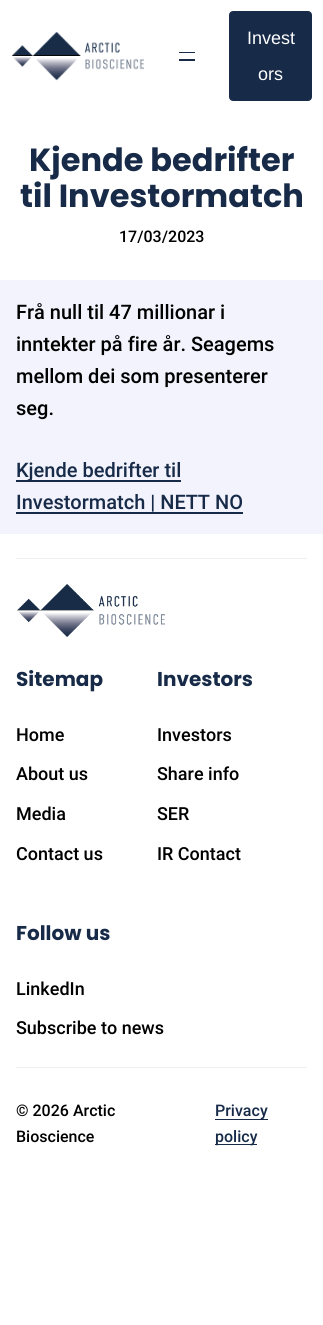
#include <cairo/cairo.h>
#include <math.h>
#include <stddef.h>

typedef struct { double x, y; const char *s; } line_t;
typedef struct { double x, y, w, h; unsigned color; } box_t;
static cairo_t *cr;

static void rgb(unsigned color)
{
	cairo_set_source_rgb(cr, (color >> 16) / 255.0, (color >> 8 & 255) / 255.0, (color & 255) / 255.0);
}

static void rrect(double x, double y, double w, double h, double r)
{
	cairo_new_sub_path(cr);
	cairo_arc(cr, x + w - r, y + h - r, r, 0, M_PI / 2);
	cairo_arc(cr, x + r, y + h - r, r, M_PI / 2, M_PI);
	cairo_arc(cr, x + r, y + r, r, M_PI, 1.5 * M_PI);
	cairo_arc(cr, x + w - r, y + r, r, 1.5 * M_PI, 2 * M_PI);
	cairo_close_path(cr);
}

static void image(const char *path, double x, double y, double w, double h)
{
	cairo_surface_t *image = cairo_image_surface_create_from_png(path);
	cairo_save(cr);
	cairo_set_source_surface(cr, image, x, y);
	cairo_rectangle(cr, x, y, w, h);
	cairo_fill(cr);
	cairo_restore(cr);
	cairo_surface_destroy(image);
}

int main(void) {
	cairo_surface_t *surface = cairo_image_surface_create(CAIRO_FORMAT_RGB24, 323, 1325);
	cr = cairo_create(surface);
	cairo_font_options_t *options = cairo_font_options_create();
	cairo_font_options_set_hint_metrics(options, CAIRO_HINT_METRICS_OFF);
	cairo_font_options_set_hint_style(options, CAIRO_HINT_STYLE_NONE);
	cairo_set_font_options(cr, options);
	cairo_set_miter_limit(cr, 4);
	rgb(0xffffff);
	cairo_paint(cr);
	image("img/1.png", 12, 32, 132, 49);
	rgb(0x172b49);
	cairo_rectangle(cr, 179, 52, 16, 1);
	cairo_fill(cr);
	cairo_rectangle(cr, 179, 59, 16, 2);
	cairo_fill(cr);
	rrect(230, 12, 81, 88, 3);
	cairo_fill_preserve(cr);
	cairo_stroke(cr);
	{
		static const box_t items[] = {
			{0, 280, 323, 254, 0xf2f3fc},
			{16, 480, 165, 2, 0x172b49},
			{16, 512, 227, 2, 0x172b49},
			{16, 558, 291, 1, 0xf0f0f0},
			{16, 1067, 291, 1, 0xf0f0f0},
		};
		for (size_t i = 0; i < sizeof items / sizeof *items; i++) {
			rgb(items[i].color);
			cairo_rectangle(cr, items[i].x, items[i].y, items[i].w, items[i].h);
			cairo_fill(cr);
		}
	}
	image("img/2.png", 16, 583, 149, 54);
	rgb(0x172b49);
	cairo_rectangle(cr, 215, 1119, 53, 1);
	cairo_fill(cr);
	cairo_rectangle(cr, 215, 1144, 42, 1);
	cairo_fill(cr);
	cairo_select_font_face(cr, "Liberation Sans", CAIRO_FONT_SLANT_NORMAL, CAIRO_FONT_WEIGHT_NORMAL);
	cairo_set_font_size(cr, 18);
	rgb(0xffffff);
	cairo_move_to(cr, 247, 44);
	cairo_show_text(cr, "Invest");
	cairo_move_to(cr, 258, 80);
	cairo_show_text(cr, "ors");
	cairo_select_font_face(cr, "Poppins", CAIRO_FONT_SLANT_NORMAL, CAIRO_FONT_WEIGHT_BOLD);
	cairo_set_font_size(cr, 32);
	rgb(0x172b49);
	cairo_move_to(cr, 29, 171);
	cairo_show_text(cr, "Kjende bedrifter");
	cairo_move_to(cr, 20, 207);
	cairo_show_text(cr, "til Investormatch");
	cairo_select_font_face(cr, "Roboto Medium", CAIRO_FONT_SLANT_NORMAL, CAIRO_FONT_WEIGHT_NORMAL);
	cairo_set_font_size(cr, 16);
	rgb(0x000000);
	cairo_move_to(cr, 119, 242);
	cairo_show_text(cr, "17/03/2023");
	cairo_set_font_size(cr, 20);
	{
		static const line_t items[] = {
			{16, 319, "Frå null til 47 millionar i"},
			{16, 351, "inntekter på fire år. Seagems"},
			{16, 383, "mellom dei som presenterer"},
			{16, 415, "seg."},
		};
		for (size_t i = 0; i < sizeof items / sizeof *items; i++) {
			cairo_move_to(cr, items[i].x, items[i].y);
			cairo_show_text(cr, items[i].s);
		}
	}
	rgb(0x172b49);
	cairo_move_to(cr, 16, 477);
	cairo_show_text(cr, "Kjende bedrifter til");
	cairo_move_to(cr, 16, 509);
	cairo_show_text(cr, "Investormatch | NETT NO");
	cairo_select_font_face(cr, "Poppins", CAIRO_FONT_SLANT_NORMAL, CAIRO_FONT_WEIGHT_BOLD);
	cairo_move_to(cr, 16, 686);
	cairo_show_text(cr, "Sitemap");
	cairo_select_font_face(cr, "Roboto Medium", CAIRO_FONT_SLANT_NORMAL, CAIRO_FONT_WEIGHT_NORMAL);
	cairo_set_font_size(cr, 18);
	rgb(0x000000);
	{
		static const line_t items[] = {
			{16, 741, "Home"},
			{16, 780, "About us"},
			{16, 820, "Media"},
			{16, 860, "Contact us"},
		};
		for (size_t i = 0; i < sizeof items / sizeof *items; i++) {
			cairo_move_to(cr, items[i].x, items[i].y);
			cairo_show_text(cr, items[i].s);
		}
	}
	cairo_select_font_face(cr, "Poppins", CAIRO_FONT_SLANT_NORMAL, CAIRO_FONT_WEIGHT_BOLD);
	cairo_set_font_size(cr, 20);
	rgb(0x172b49);
	cairo_move_to(cr, 157, 686);
	cairo_show_text(cr, "Investors");
	cairo_select_font_face(cr, "Roboto Medium", CAIRO_FONT_SLANT_NORMAL, CAIRO_FONT_WEIGHT_NORMAL);
	cairo_set_font_size(cr, 18);
	rgb(0x000000);
	{
		static const line_t items[] = {
			{157, 741, "Investors"},
			{157, 780, "Share info"},
			{157, 820, "SER"},
			{157, 860, "IR Contact"},
		};
		for (size_t i = 0; i < sizeof items / sizeof *items; i++) {
			cairo_move_to(cr, items[i].x, items[i].y);
			cairo_show_text(cr, items[i].s);
		}
	}
	cairo_select_font_face(cr, "Poppins", CAIRO_FONT_SLANT_NORMAL, CAIRO_FONT_WEIGHT_BOLD);
	cairo_set_font_size(cr, 20);
	rgb(0x172b49);
	cairo_move_to(cr, 16, 940);
	cairo_show_text(cr, "Follow us");
	cairo_select_font_face(cr, "Roboto Medium", CAIRO_FONT_SLANT_NORMAL, CAIRO_FONT_WEIGHT_NORMAL);
	cairo_set_font_size(cr, 18);
	rgb(0x000000);
	cairo_move_to(cr, 16, 995);
	cairo_show_text(cr, "LinkedIn");
	cairo_move_to(cr, 16, 1034);
	cairo_show_text(cr, "Subscribe to news");
	cairo_set_font_size(cr, 16);
	cairo_move_to(cr, 16, 1116);
	cairo_show_text(cr, "© 2026 Arctic");
	cairo_move_to(cr, 16, 1142);
	cairo_show_text(cr, "Bioscience");
	rgb(0x172b49);
	cairo_move_to(cr, 215, 1116);
	cairo_show_text(cr, "Privacy");
	cairo_move_to(cr, 215, 1142);
	cairo_show_text(cr, "policy");
	cairo_surface_write_to_png(surface, "page.png");
	cairo_font_options_destroy(options);
	cairo_destroy(cr);
	cairo_surface_destroy(surface);
	return 0;
}
